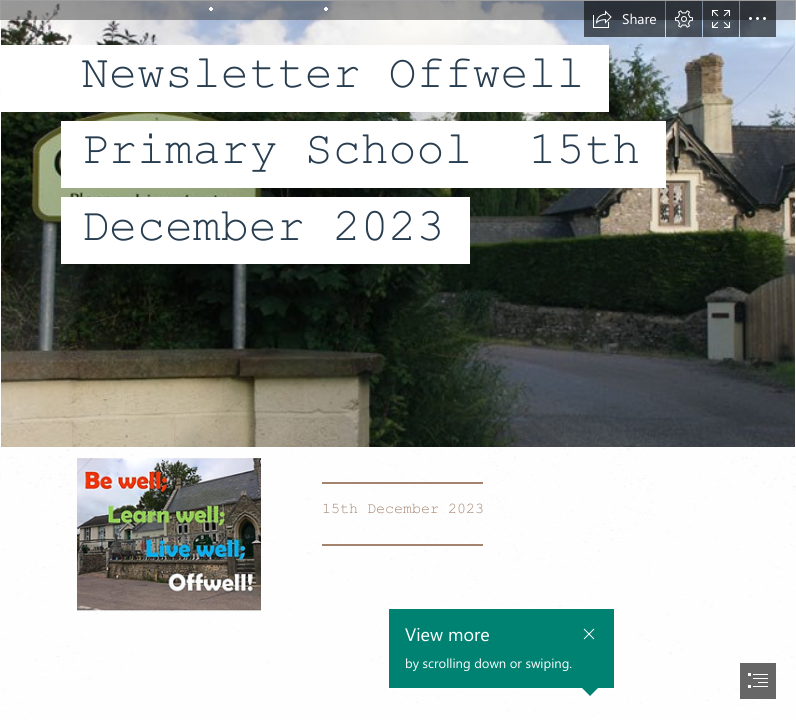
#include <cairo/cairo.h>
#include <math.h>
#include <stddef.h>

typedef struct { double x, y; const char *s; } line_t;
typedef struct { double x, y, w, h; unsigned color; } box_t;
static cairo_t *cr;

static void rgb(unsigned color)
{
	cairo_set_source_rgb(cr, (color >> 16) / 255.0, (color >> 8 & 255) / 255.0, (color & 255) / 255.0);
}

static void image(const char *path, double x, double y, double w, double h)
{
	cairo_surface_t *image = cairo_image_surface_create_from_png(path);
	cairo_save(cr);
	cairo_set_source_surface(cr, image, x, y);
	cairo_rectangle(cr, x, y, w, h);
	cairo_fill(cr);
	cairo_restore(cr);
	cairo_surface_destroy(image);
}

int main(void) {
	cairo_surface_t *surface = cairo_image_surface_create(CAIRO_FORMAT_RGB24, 796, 720);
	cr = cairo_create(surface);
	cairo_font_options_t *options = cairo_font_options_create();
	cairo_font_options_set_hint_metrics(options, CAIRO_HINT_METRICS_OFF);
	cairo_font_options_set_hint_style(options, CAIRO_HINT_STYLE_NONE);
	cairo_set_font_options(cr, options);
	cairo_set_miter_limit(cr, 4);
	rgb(0xffffff);
	cairo_paint(cr);
	image("img/6.png", 0, 0, 796, 720);
	image("img/7.png", 1, 1, 794, 446);
	cairo_set_source_rgba(cr, 0.251, 0.251, 0.251, 0.5);
	cairo_rectangle(cr, 0, 0, 796, 20);
	cairo_fill(cr);
	cairo_set_source_rgba(cr, 0, 0, 0, 0.6);
	cairo_rectangle(cr, 584, 1, 81, 36);
	cairo_fill(cr);
	image("img/1.png", 593, 10, 19, 18);
	cairo_rectangle(cr, 666, 1, 36, 36);
	cairo_fill(cr);
	image("img/2.png", 675, 10, 18, 18);
	cairo_rectangle(cr, 703, 1, 36, 36);
	cairo_fill(cr);
	image("img/3.png", 712, 10, 18, 18);
	cairo_rectangle(cr, 740, 1, 36, 36);
	cairo_fill(cr);
	image("img/4.png", 749, 17, 17, 3);
	image("img/5.png", 209, 7, 119, 4);
	{
		static const box_t items[] = {
			{1, 45, 608, 67, 0xffffff},
			{61, 121, 605, 67, 0xffffff},
			{61, 197, 409, 67, 0xffffff},
		};
		for (size_t i = 0; i < sizeof items / sizeof *items; i++) {
			rgb(items[i].color);
			cairo_rectangle(cr, items[i].x, items[i].y, items[i].w, items[i].h);
			cairo_fill(cr);
		}
	}
	image("img/8.png", 77, 458, 184, 155);
	rgb(0xa4846f);
	cairo_rectangle(cr, 322, 482, 161, 2);
	cairo_fill(cr);
	cairo_rectangle(cr, 322, 544, 161, 2);
	cairo_fill(cr);
	rgb(0x008272);
	cairo_rectangle(cr, 388, 608, 227, 81);
	cairo_fill_preserve(cr);
	rgb(0xffffff);
	cairo_stroke(cr);
	image("img/9.png", 583, 628, 12, 12);
	cairo_new_path(cr);
	cairo_move_to(cr, 580, 688);
	cairo_line_to(cr, 600, 688);
	cairo_line_to(cr, 590, 698);
	cairo_close_path(cr);
	cairo_fill(cr);
	rgb(0x008272);
	cairo_new_path(cr);
	cairo_move_to(cr, 582, 688);
	cairo_line_to(cr, 598, 688);
	cairo_line_to(cr, 590, 696);
	cairo_close_path(cr);
	cairo_fill(cr);
	cairo_set_source_rgba(cr, 0, 0, 0, 0.6);
	cairo_rectangle(cr, 740, 663, 36, 36);
	cairo_fill(cr);
	image("img/10.png", 748, 673, 20, 15);
	cairo_select_font_face(cr, "Segoe UI", CAIRO_FONT_SLANT_NORMAL, CAIRO_FONT_WEIGHT_NORMAL);
	cairo_set_font_size(cr, 14);
	rgb(0xffffff);
	cairo_move_to(cr, 622, 24);
	cairo_show_text(cr, "Share");
	cairo_select_font_face(cr, "Courier New", CAIRO_FONT_SLANT_NORMAL, CAIRO_FONT_WEIGHT_NORMAL);
	cairo_set_font_size(cr, 46.6);
	rgb(0x283d50);
	{
		static const line_t items[] = {
			{81, 87, "Newsletter Offwell"},
			{81, 163, "Primary School  15th"},
			{81, 240, "December 2023"},
		};
		for (size_t i = 0; i < sizeof items / sizeof *items; i++) {
			cairo_move_to(cr, items[i].x, items[i].y);
			cairo_show_text(cr, items[i].s);
		}
	}
	cairo_set_font_size(cr, 15);
	rgb(0xa4846f);
	cairo_move_to(cr, 322, 513);
	cairo_show_text(cr, "15th December 2023");
	cairo_select_font_face(cr, "Segoe UI", CAIRO_FONT_SLANT_NORMAL, CAIRO_FONT_WEIGHT_NORMAL);
	cairo_set_font_size(cr, 18);
	rgb(0xffffff);
	cairo_move_to(cr, 405, 641);
	cairo_show_text(cr, "View more");
	cairo_set_font_size(cr, 13);
	cairo_move_to(cr, 405, 668);
	cairo_show_text(cr, "by scrolling down or swiping.");
	cairo_surface_write_to_png(surface, "page.png");
	cairo_font_options_destroy(options);
	cairo_destroy(cr);
	cairo_surface_destroy(surface);
	return 0;
}
